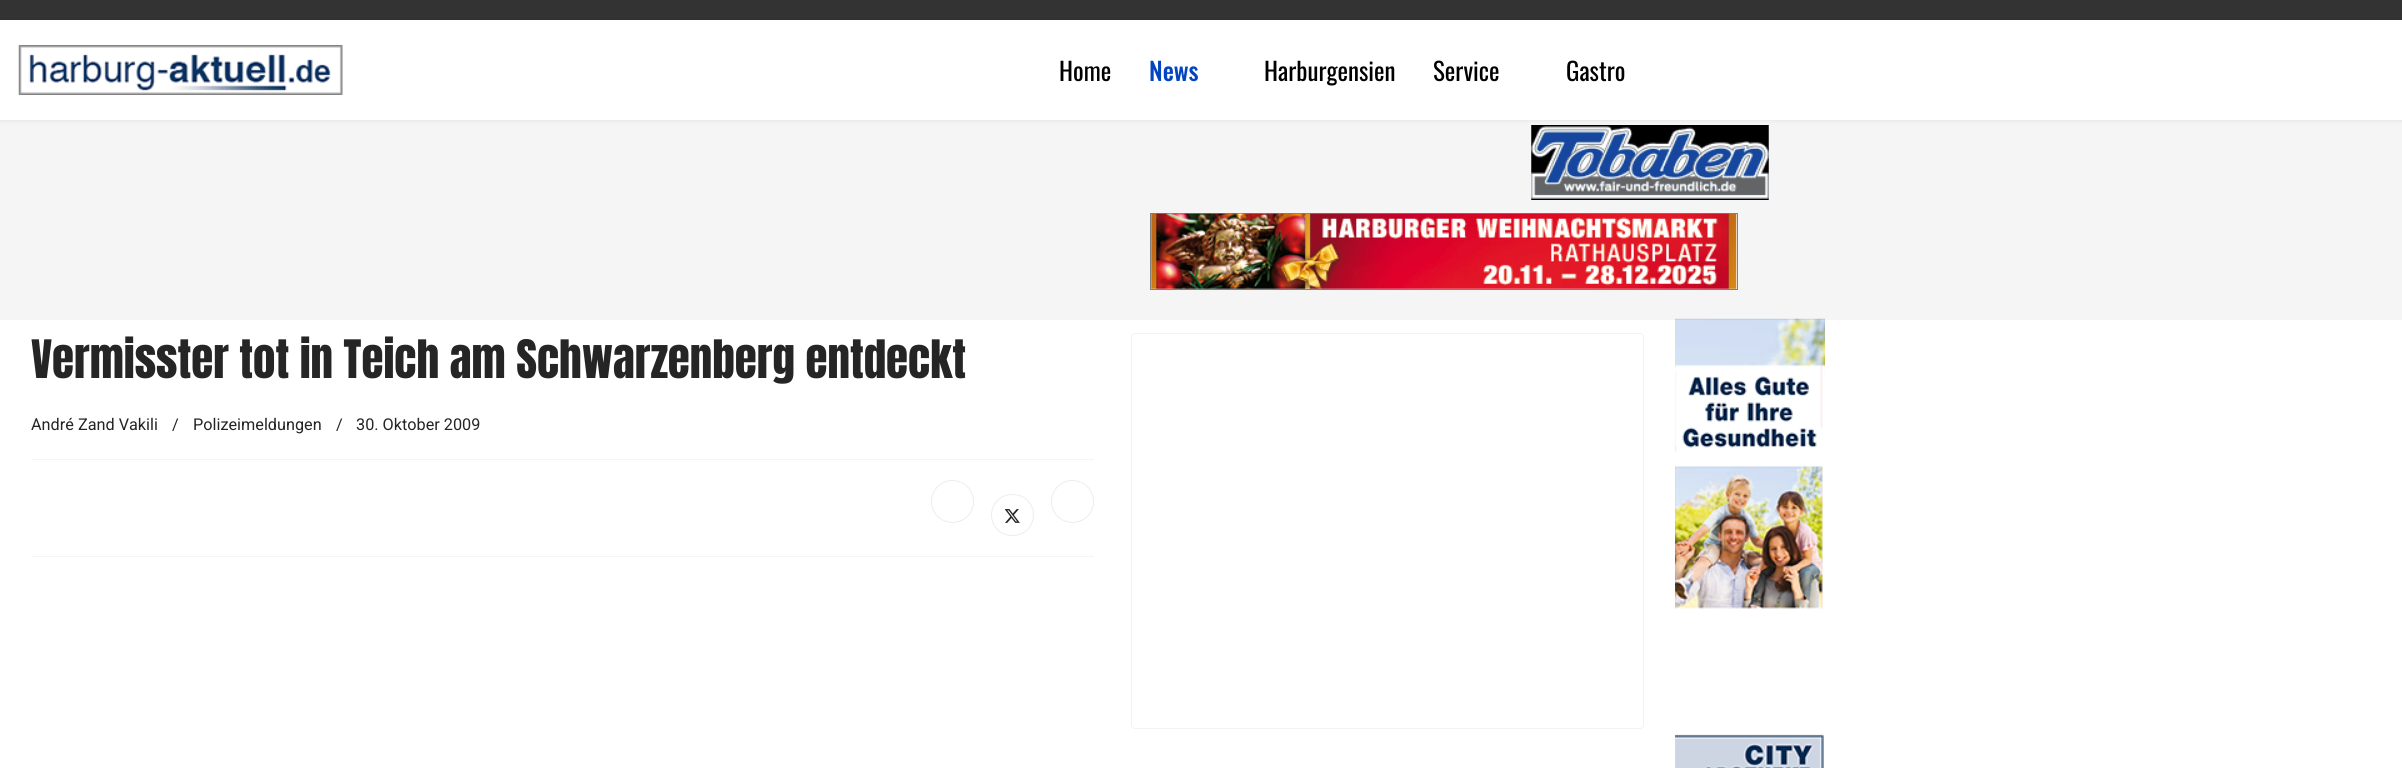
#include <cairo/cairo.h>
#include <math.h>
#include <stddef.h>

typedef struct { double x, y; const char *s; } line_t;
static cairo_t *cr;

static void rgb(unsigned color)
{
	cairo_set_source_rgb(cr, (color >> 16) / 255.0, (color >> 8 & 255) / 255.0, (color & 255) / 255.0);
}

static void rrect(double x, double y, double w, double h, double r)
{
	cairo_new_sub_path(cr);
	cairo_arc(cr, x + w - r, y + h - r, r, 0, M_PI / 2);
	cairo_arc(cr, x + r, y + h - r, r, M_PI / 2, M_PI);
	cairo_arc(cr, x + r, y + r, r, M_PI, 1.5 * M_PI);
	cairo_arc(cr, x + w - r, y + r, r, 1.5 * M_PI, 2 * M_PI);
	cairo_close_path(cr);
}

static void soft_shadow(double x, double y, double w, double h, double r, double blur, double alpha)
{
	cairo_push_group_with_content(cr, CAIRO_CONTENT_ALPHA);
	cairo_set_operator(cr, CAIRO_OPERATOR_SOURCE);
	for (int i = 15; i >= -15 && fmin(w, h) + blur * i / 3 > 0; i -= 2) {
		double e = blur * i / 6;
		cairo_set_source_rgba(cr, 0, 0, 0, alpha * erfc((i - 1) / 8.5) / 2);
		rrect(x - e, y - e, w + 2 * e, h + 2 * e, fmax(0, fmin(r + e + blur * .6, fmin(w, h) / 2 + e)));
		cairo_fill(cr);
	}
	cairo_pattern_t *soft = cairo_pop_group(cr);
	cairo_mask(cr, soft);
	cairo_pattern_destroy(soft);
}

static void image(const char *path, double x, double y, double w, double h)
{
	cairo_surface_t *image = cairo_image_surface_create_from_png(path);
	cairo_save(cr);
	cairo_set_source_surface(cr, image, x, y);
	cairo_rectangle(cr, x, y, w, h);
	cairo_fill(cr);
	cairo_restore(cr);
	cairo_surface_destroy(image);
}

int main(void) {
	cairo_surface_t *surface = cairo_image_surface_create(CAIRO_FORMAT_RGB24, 2402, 768);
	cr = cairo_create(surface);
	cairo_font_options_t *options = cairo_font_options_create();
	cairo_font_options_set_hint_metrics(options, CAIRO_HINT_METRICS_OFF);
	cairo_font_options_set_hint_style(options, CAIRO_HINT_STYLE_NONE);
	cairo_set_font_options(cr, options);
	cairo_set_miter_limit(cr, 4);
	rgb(0xffffff);
	cairo_paint(cr);
	rgb(0x333333);
	cairo_rectangle(cr, 0, 0, 2402, 20);
	cairo_fill(cr);
	rgb(0xf5f5f5);
	cairo_rectangle(cr, 0, 120, 2402, 200);
	cairo_fill(cr);
	image("img/3.png", 1531, 125, 238, 75);
	cairo_save(cr);
	cairo_set_fill_rule(cr, CAIRO_FILL_RULE_EVEN_ODD);
	cairo_new_path(cr);
	cairo_move_to(cr, 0, 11);
	cairo_line_to(cr, 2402, 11);
	cairo_line_to(cr, 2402, 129);
	cairo_line_to(cr, 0, 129);
	cairo_close_path(cr);
	cairo_move_to(cr, 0, 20);
	cairo_line_to(cr, 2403, 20);
	cairo_line_to(cr, 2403, 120);
	cairo_line_to(cr, 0, 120);
	cairo_close_path(cr);
	cairo_clip(cr);
	rgb(0x000000);
	soft_shadow(0, 20, 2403, 100, 0, 2.5, 0.1);
	cairo_restore(cr);
	image("img/1.png", 18, 45, 325, 50);
	cairo_rectangle(cr, 31, 459, 1063, 1);
	cairo_fill(cr);
	cairo_rectangle(cr, 31, 556, 1063, 1);
	cairo_fill(cr);
	cairo_arc(cr, 952.5, 501.5, 21, 0, 2 * M_PI);
	rgb(0xededed);
	cairo_set_line_width(cr, 1);
	cairo_stroke(cr);
	rrect(991.5, 494.5, 42, 41, 20.5);
	cairo_stroke(cr);
	image("img/2.png", 1004, 509, 16, 14);
	cairo_arc(cr, 1072.5, 501.5, 21, 0, 2 * M_PI);
	cairo_stroke(cr);
	rrect(1131.5, 333.5, 512, 395, 3.5);
	rgb(0xf3f3f3);
	cairo_stroke(cr);
	cairo_rectangle(cr, 1150.5, 213.5, 587, 76);
	rgb(0x808080);
	cairo_stroke(cr);
	image("img/4.png", 1151, 213, 586, 76);
	image("img/5.png", 1675, 318, 150, 450);
	cairo_select_font_face(cr, "Oswald", CAIRO_FONT_SLANT_NORMAL, CAIRO_FONT_WEIGHT_NORMAL);
	cairo_set_font_size(cr, 25);
	rgb(0x000000);
	cairo_move_to(cr, 1059, 81);
	cairo_show_text(cr, "Home");
	cairo_select_font_face(cr, "Oswald Medium", CAIRO_FONT_SLANT_NORMAL, CAIRO_FONT_WEIGHT_NORMAL);
	rgb(0x0345bf);
	cairo_move_to(cr, 1149, 81);
	cairo_show_text(cr, "News");
	cairo_select_font_face(cr, "Oswald", CAIRO_FONT_SLANT_NORMAL, CAIRO_FONT_WEIGHT_NORMAL);
	rgb(0x000000);
	{
		static const line_t items[] = {
			{1264, 81, "Harburgensien"},
			{1433, 81, "Service"},
			{1566, 81, "Gastro"},
		};
		for (size_t i = 0; i < sizeof items / sizeof *items; i++) {
			cairo_move_to(cr, items[i].x, items[i].y);
			cairo_show_text(cr, items[i].s);
		}
	}
	cairo_select_font_face(cr, "Anton", CAIRO_FONT_SLANT_NORMAL, CAIRO_FONT_WEIGHT_NORMAL);
	cairo_set_font_size(cr, 45);
	rgb(0x252525);
	cairo_move_to(cr, 31, 378);
	cairo_show_text(cr, "Vermisster tot in Teich am Schwarzenberg entdeckt");
	cairo_select_font_face(cr, "Roboto", CAIRO_FONT_SLANT_NORMAL, CAIRO_FONT_WEIGHT_NORMAL);
	cairo_set_font_size(cr, 16.25);
	{
		static const line_t items[] = {
			{31, 430, "André Zand Vakili"},
			{172, 430, "/"},
			{193, 430, "Polizeimeldungen"},
			{336, 430, "/"},
			{356, 430, "30. Oktober 2009"},
		};
		for (size_t i = 0; i < sizeof items / sizeof *items; i++) {
			cairo_move_to(cr, items[i].x, items[i].y);
			cairo_show_text(cr, items[i].s);
		}
	}
	cairo_surface_write_to_png(surface, "page.png");
	cairo_font_options_destroy(options);
	cairo_destroy(cr);
	cairo_surface_destroy(surface);
	return 0;
}
